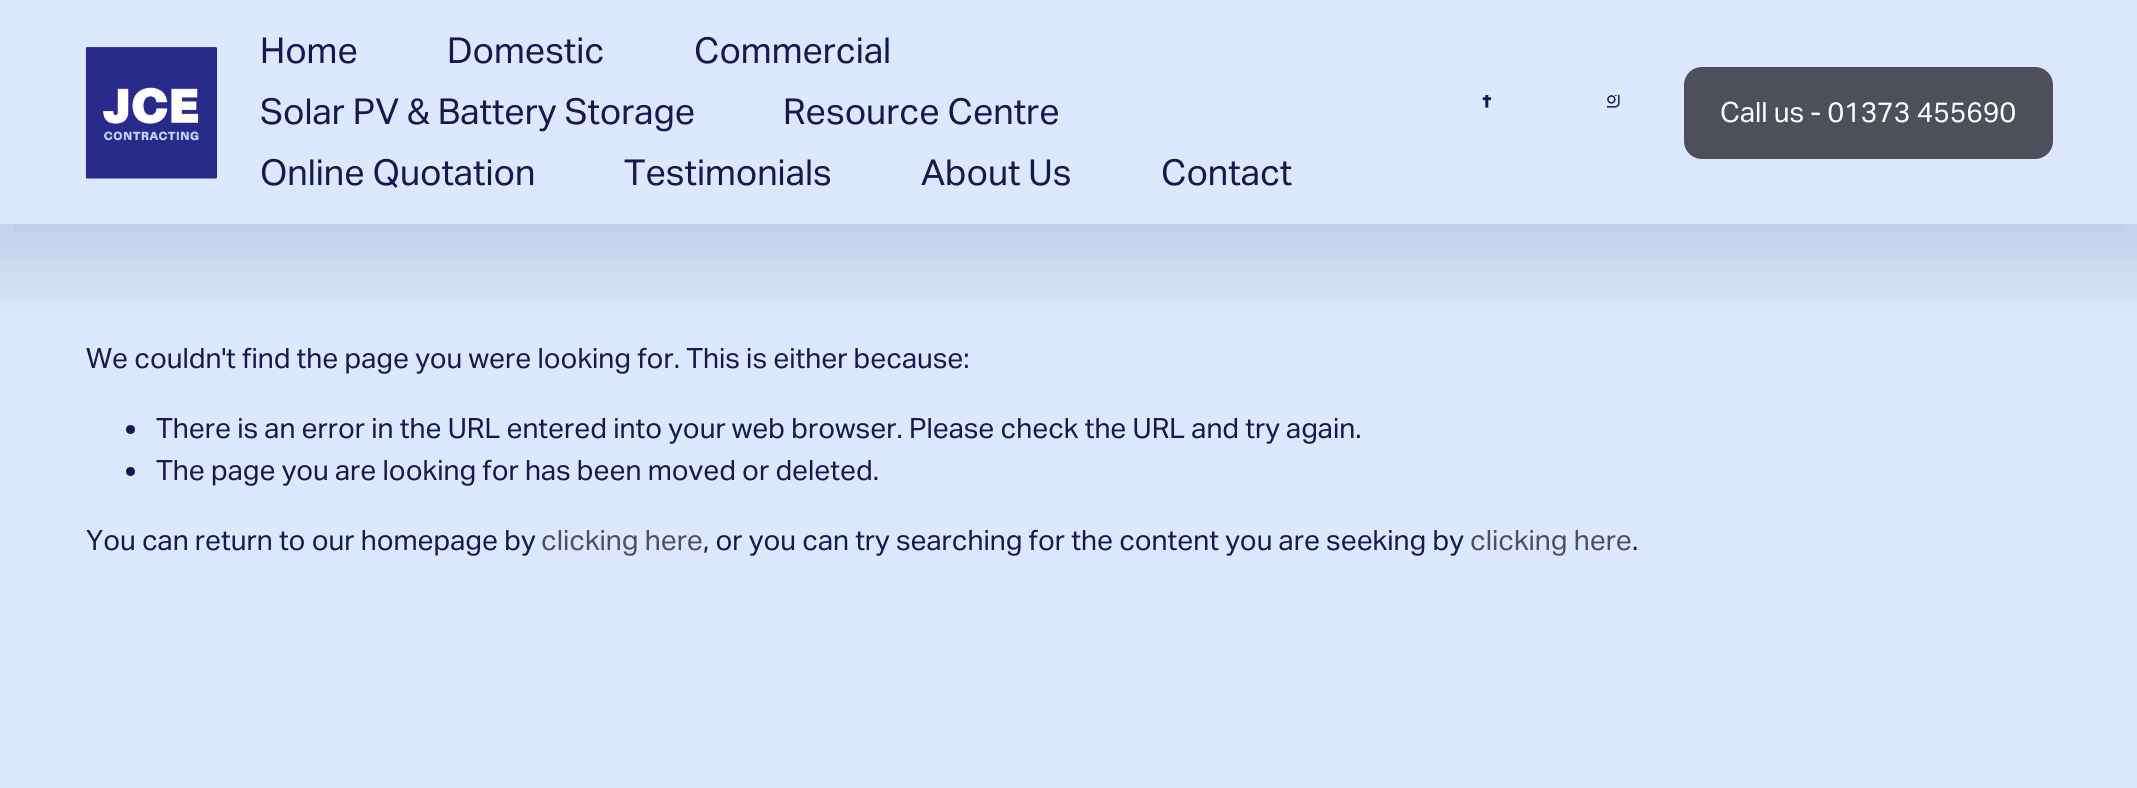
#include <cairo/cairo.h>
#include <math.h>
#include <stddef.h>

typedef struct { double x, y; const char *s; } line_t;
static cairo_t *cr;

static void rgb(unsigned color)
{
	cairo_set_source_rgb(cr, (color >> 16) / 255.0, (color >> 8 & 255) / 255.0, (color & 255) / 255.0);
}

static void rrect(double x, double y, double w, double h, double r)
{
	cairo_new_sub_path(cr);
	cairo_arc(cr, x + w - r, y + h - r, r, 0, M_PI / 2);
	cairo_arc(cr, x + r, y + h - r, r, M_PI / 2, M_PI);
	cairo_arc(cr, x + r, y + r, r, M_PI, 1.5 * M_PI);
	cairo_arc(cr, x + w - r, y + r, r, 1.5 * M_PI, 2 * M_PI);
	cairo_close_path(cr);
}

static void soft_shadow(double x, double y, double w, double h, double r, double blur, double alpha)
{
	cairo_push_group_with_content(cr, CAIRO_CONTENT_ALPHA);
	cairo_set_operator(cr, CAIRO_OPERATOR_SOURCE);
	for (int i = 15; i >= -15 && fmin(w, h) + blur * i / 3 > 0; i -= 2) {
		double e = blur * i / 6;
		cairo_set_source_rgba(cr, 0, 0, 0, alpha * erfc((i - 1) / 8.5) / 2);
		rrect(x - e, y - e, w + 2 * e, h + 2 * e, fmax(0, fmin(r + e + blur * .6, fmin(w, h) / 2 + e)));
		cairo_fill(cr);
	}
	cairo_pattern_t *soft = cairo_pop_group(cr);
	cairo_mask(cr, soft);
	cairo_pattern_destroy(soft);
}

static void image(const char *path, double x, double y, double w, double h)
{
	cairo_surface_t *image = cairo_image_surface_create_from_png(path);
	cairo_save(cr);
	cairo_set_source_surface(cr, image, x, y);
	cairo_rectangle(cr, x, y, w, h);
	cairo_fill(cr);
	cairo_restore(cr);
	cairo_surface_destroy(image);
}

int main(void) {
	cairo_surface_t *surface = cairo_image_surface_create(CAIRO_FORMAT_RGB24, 2137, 788);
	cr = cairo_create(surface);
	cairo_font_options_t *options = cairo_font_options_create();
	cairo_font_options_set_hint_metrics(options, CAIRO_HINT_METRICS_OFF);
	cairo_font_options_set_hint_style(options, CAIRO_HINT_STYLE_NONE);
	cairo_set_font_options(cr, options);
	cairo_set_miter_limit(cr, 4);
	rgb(0xdde8ff);
	cairo_paint(cr);
	cairo_save(cr);
	cairo_rectangle(cr, 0, 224, 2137, 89);
	cairo_clip(cr);
	rgb(0x17184f);
	soft_shadow(-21, 0, 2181, 266, 0, 42, 0.15);
	cairo_restore(cr);
	image("img/1.png", 85, 47, 132, 132);
	image("img/2.png", 1482, 95, 10, 13);
	image("img/3.png", 1607, 95, 13, 13);
	rgb(0x4d505b);
	rrect(1684, 67, 369, 92, 18);
	cairo_fill(cr);
	rgb(0x17184f);
	cairo_arc(cr, 130.5, 429.5, 4.5, 0, 2 * M_PI);
	cairo_fill(cr);
	cairo_arc(cr, 130.5, 471.5, 4.5, 0, 2 * M_PI);
	cairo_fill(cr);
	cairo_select_font_face(cr, "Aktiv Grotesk", CAIRO_FONT_SLANT_NORMAL, CAIRO_FONT_WEIGHT_NORMAL);
	cairo_set_font_size(cr, 35.75);
	{
		static const line_t items[] = {
			{260, 63, "Home"},
			{447, 63, "Domestic"},
			{694, 63, "Commercial"},
			{260, 124, "Solar PV & Battery Storage"},
			{783, 124, "Resource Centre"},
			{260, 185, "Online Quotation"},
			{624, 185, "Testimonials"},
			{921, 185, "About Us"},
			{1161, 185, "Contact"},
		};
		for (size_t i = 0; i < sizeof items / sizeof *items; i++) {
			cairo_move_to(cr, items[i].x, items[i].y);
			cairo_show_text(cr, items[i].s);
		}
	}
	cairo_set_font_size(cr, 28);
	rgb(0xffffff);
	cairo_move_to(cr, 1720, 122);
	cairo_show_text(cr, "Call us - 01373 455690");
	rgb(0x17184f);
	{
		static const line_t items[] = {
			{86, 368, "We couldn't find the page you were looking for. This is either because:"},
			{156, 438, "There is an error in the URL entered into your web browser. Please check the URL and try again."},
			{156, 480, "The page you are looking for has been moved or deleted."},
			{86, 550, "You can return to our homepage by"},
		};
		for (size_t i = 0; i < sizeof items / sizeof *items; i++) {
			cairo_move_to(cr, items[i].x, items[i].y);
			cairo_show_text(cr, items[i].s);
		}
	}
	rgb(0x4d505b);
	cairo_move_to(cr, 541, 550);
	cairo_show_text(cr, "clicking here");
	rgb(0x17184f);
	cairo_move_to(cr, 703, 550);
	cairo_show_text(cr, ", or you can try searching for the content you are seeking by");
	rgb(0x4d505b);
	cairo_move_to(cr, 1470, 550);
	cairo_show_text(cr, "clicking here");
	rgb(0x17184f);
	cairo_move_to(cr, 1632, 550);
	cairo_show_text(cr, ".");
	cairo_surface_write_to_png(surface, "page.png");
	cairo_font_options_destroy(options);
	cairo_destroy(cr);
	cairo_surface_destroy(surface);
	return 0;
}
